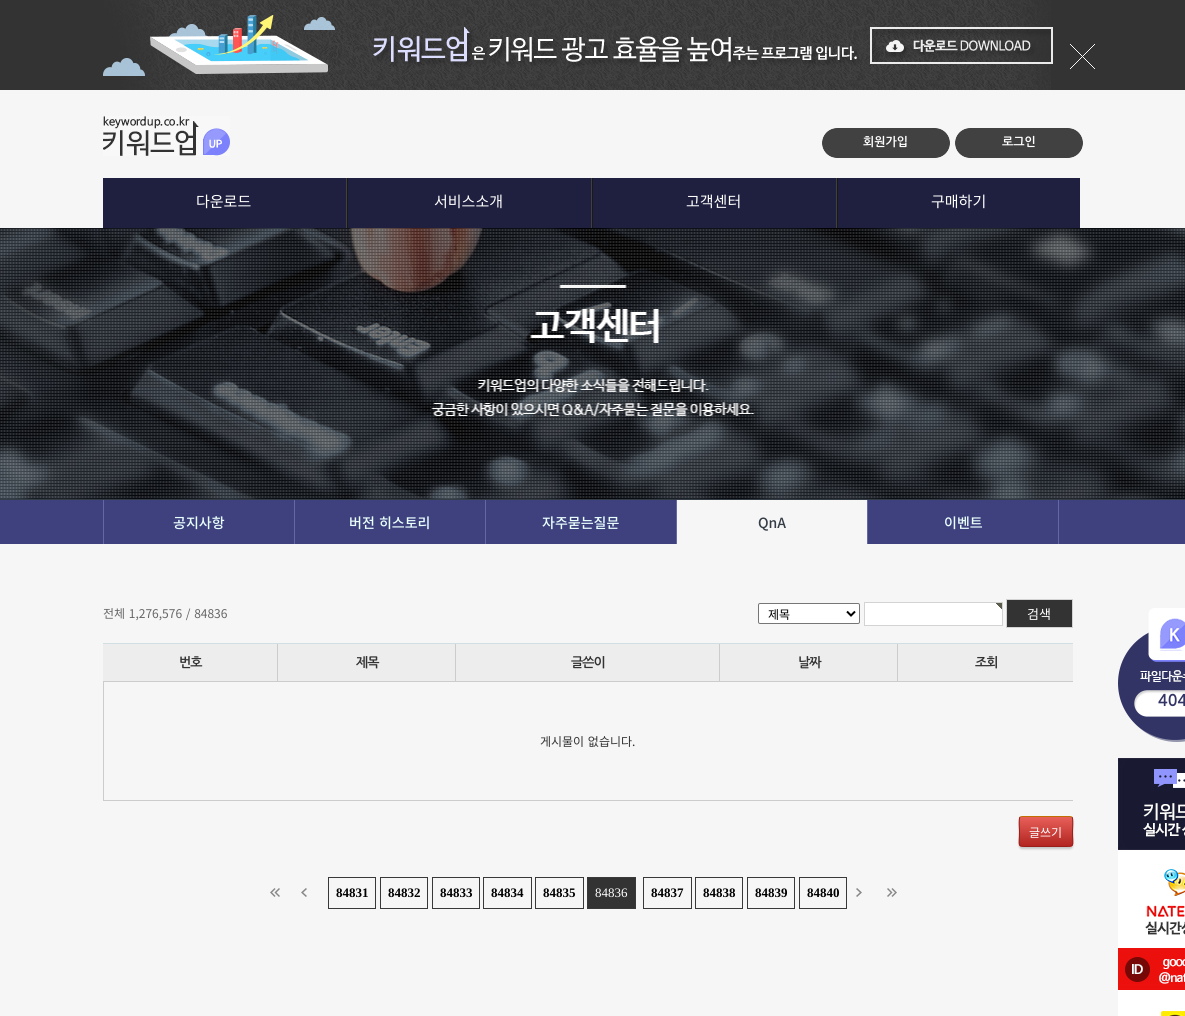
#include <cairo/cairo.h>
#include <math.h>
#include <stddef.h>

typedef struct { double x, y; const char *s; } line_t;
typedef struct { double x, y, w, h; unsigned color; } box_t;
static cairo_t *cr;

static void rgb(unsigned color)
{
	cairo_set_source_rgb(cr, (color >> 16) / 255.0, (color >> 8 & 255) / 255.0, (color & 255) / 255.0);
}

static void tracked(double x, double y, const char *s, double letter, double word)
{
	cairo_move_to(cr, x, y);
	while (*s) {
		char ch[5] = {0};
		int n = 0;
		do ch[n++] = *s++; while ((*s & 0xC0) == 0x80);
		cairo_show_text(cr, ch);
		cairo_rel_move_to(cr, letter + word * (*ch == ' '), 0);
	}
}

static void rrect(double x, double y, double w, double h, double r)
{
	cairo_new_sub_path(cr);
	cairo_arc(cr, x + w - r, y + h - r, r, 0, M_PI / 2);
	cairo_arc(cr, x + r, y + h - r, r, M_PI / 2, M_PI);
	cairo_arc(cr, x + r, y + r, r, M_PI, 1.5 * M_PI);
	cairo_arc(cr, x + w - r, y + r, r, 1.5 * M_PI, 2 * M_PI);
	cairo_close_path(cr);
}

static void soft_shadow(double x, double y, double w, double h, double r, double blur, double alpha)
{
	cairo_push_group_with_content(cr, CAIRO_CONTENT_ALPHA);
	cairo_set_operator(cr, CAIRO_OPERATOR_SOURCE);
	for (int i = 15; i >= -15 && fmin(w, h) + blur * i / 3 > 0; i -= 2) {
		double e = blur * i / 6;
		cairo_set_source_rgba(cr, 0, 0, 0, alpha * erfc((i - 1) / 8.5) / 2);
		rrect(x - e, y - e, w + 2 * e, h + 2 * e, fmax(0, fmin(r + e + blur * .6, fmin(w, h) / 2 + e)));
		cairo_fill(cr);
	}
	cairo_pattern_t *soft = cairo_pop_group(cr);
	cairo_mask(cr, soft);
	cairo_pattern_destroy(soft);
}

static void image(const char *path, double x, double y, double w, double h)
{
	cairo_surface_t *image = cairo_image_surface_create_from_png(path);
	cairo_save(cr);
	cairo_set_source_surface(cr, image, x, y);
	cairo_rectangle(cr, x, y, w, h);
	cairo_fill(cr);
	cairo_restore(cr);
	cairo_surface_destroy(image);
}

int main(void) {
	cairo_surface_t *surface = cairo_image_surface_create(CAIRO_FORMAT_RGB24, 1185, 1016);
	cr = cairo_create(surface);
	cairo_font_options_t *options = cairo_font_options_create();
	cairo_font_options_set_hint_metrics(options, CAIRO_HINT_METRICS_OFF);
	cairo_font_options_set_hint_style(options, CAIRO_HINT_STYLE_NONE);
	cairo_set_font_options(cr, options);
	cairo_set_miter_limit(cr, 4);
	cairo_pattern_t *gradient;
	rgb(0xf6f6f6);
	cairo_paint(cr);
	rgb(0x333333);
	cairo_rectangle(cr, 0, 0, 1185, 90);
	cairo_fill(cr);
	image("img/1.png", 103, 0, 948, 90);
	image("img/2.png", 870, 27, 183, 37);
	image("img/3.png", 1070, 44, 25, 25);
	image("img/4.png", 103, 116, 127, 40);
	rgb(0x414141);
	cairo_rectangle(cr, 822, 128, 128, 30);
	cairo_fill(cr);
	image("img/5.png", 822, 128, 128, 30);
	cairo_rectangle(cr, 955, 128, 128, 30);
	cairo_fill(cr);
	image("img/5.png", 955, 128, 128, 30);
	{
		static const box_t items[] = {
			{103, 178, 243, 50, 0x1f203f},
			{346, 178, 1, 50, 0x404040},
			{348, 178, 243, 50, 0x1f203f},
			{591, 178, 1, 50, 0x404040},
			{347, 178, 1, 50, 0x191919},
			{593, 178, 243, 50, 0x1f203f},
			{836, 178, 1, 50, 0x404040},
			{592, 178, 1, 50, 0x191919},
			{838, 178, 242, 50, 0x1f203f},
			{837, 178, 1, 50, 0x191919},
		};
		for (size_t i = 0; i < sizeof items / sizeof *items; i++) {
			rgb(items[i].color);
			cairo_rectangle(cr, items[i].x, items[i].y, items[i].w, items[i].h);
			cairo_fill(cr);
		}
	}
	image("img/6.png", 0, 228, 1185, 271);
	{
		static const box_t items[] = {
			{0, 500, 1185, 44, 0x3e417e},
			{0, 499, 1185, 1, 0x343c45},
			{103, 500, 1, 44, 0x6467a5},
			{294, 500, 1, 44, 0x6467a5},
			{485, 500, 1, 44, 0x6467a5},
			{677, 500, 190, 44, 0xf6f6f6},
			{676, 500, 1, 44, 0x6467a5},
			{1058, 500, 1, 44, 0x6467a5},
			{867, 500, 1, 44, 0x6467a5},
		};
		for (size_t i = 0; i < sizeof items / sizeof *items; i++) {
			rgb(items[i].color);
			cairo_rectangle(cr, items[i].x, items[i].y, items[i].w, items[i].h);
			cairo_fill(cr);
		}
	}
	rgb(0xffffff);
	rrect(758.5, 603.5, 101, 20, 1.5);
	cairo_fill_preserve(cr);
	rgb(0x767676);
	cairo_set_line_width(cr, 1);
	cairo_stroke(cr);
	cairo_new_path(cr);
	cairo_move_to(cr, 847, 611.5);
	cairo_line_to(cr, 851, 615.5);
	cairo_line_to(cr, 855, 611.5);
	rgb(0x000000);
	cairo_set_line_width(cr, 2);
	cairo_stroke(cr);
	rgb(0xffffff);
	cairo_rectangle(cr, 865, 603, 137, 22);
	cairo_fill(cr);
	image("img/7.png", 996, 603, 6, 6);
	cairo_rectangle(cr, 864.5, 602.5, 138, 23);
	rgb(0xd3d3d3);
	cairo_set_line_width(cr, 1);
	cairo_stroke(cr);
	rgb(0x333333);
	cairo_rectangle(cr, 1006.5, 599.5, 66, 28);
	cairo_fill_preserve(cr);
	rgb(0xd3d3d3);
	cairo_stroke(cr);
	{
		static const box_t items[] = {
			{103, 644, 174, 37, 0xededed},
			{897, 643, 176, 1, 0xd1dee2},
			{897, 681, 176, 1, 0xcccccc},
			{897, 643, 1, 39, 0xcccccc},
			{719, 643, 179, 1, 0xd1dee2},
			{719, 681, 179, 1, 0xcccccc},
			{719, 643, 1, 39, 0xcccccc},
			{455, 643, 265, 1, 0xd1dee2},
			{455, 681, 265, 1, 0xcccccc},
			{455, 643, 1, 39, 0xcccccc},
			{277, 643, 179, 1, 0xd1dee2},
			{277, 681, 179, 1, 0xcccccc},
			{277, 643, 1, 39, 0xcccccc},
			{103, 643, 175, 1, 0xd1dee2},
			{103, 800, 970, 1, 0xcccccc},
			{103, 681, 1, 120, 0xcccccc},
			{103, 681, 175, 1, 0xcccccc},
			{278, 644, 177, 37, 0xededed},
			{456, 644, 263, 37, 0xededed},
			{720, 644, 177, 37, 0xededed},
			{898, 644, 175, 37, 0xededed},
		};
		for (size_t i = 0; i < sizeof items / sizeof *items; i++) {
			rgb(items[i].color);
			cairo_rectangle(cr, items[i].x, items[i].y, items[i].w, items[i].h);
			cairo_fill(cr);
		}
	}
	rgb(0x000000);
	soft_shadow(1019, 818, 54, 31, 3, 1, 0.2);
	cairo_save(cr);
	rrect(1019, 816, 54, 31, 3);
	cairo_clip(cr);
	gradient = cairo_pattern_create_linear(1046, 817, 1046, 846);
	cairo_pattern_add_color_stop_rgba(gradient, 0, 0.91, 0.376, 0.353, 1);
	cairo_pattern_add_color_stop_rgba(gradient, 1, 0.698, 0.145, 0.125, 1);
	cairo_set_source(cr, gradient);
	cairo_pattern_destroy(gradient);
	cairo_rectangle(cr, 1019, 817, 54, 29);
	cairo_fill(cr);
	gradient = cairo_pattern_create_linear(1046, 846, 1046, 875);
	cairo_pattern_add_color_stop_rgba(gradient, 0, 0.91, 0.376, 0.353, 1);
	cairo_pattern_add_color_stop_rgba(gradient, 1, 0.698, 0.145, 0.125, 1);
	cairo_set_source(cr, gradient);
	cairo_pattern_destroy(gradient);
	cairo_rectangle(cr, 1019, 846, 54, 1);
	cairo_fill(cr);
	cairo_restore(cr);
	cairo_new_path(cr);
	cairo_move_to(cr, 1020, 817);
	cairo_line_to(cr, 1022, 816.5);
	cairo_line_to(cr, 1070, 816.5);
	cairo_line_to(cr, 1072, 817);
	rgb(0xc06f01);
	cairo_stroke(cr);
	cairo_new_path(cr);
	cairo_move_to(cr, 1072, 817);
	cairo_curve_to(cr, 1073.5, 819, 1072.5, 829, 1072.5, 831.5);
	cairo_curve_to(cr, 1072.5, 847, 1076, 846.5, 1062, 846.5);
	cairo_line_to(cr, 1030, 846.5);
	cairo_curve_to(cr, 1016, 846.5, 1019.5, 847, 1019.5, 831.5);
	cairo_curve_to(cr, 1019.5, 829, 1018.5, 819, 1020, 817);
	rgb(0x991e1a);
	cairo_stroke(cr);
	image("img/8.png", 270, 888, 10, 9);
	image("img/9.png", 301, 888, 6, 9);
	cairo_rectangle(cr, 328.5, 877.5, 47, 31);
	rgb(0x393939);
	cairo_stroke(cr);
	cairo_rectangle(cr, 380.5, 877.5, 47, 31);
	cairo_stroke(cr);
	cairo_rectangle(cr, 432.5, 877.5, 47, 31);
	cairo_stroke(cr);
	cairo_rectangle(cr, 483.5, 877.5, 48, 31);
	cairo_stroke(cr);
	cairo_rectangle(cr, 535.5, 877.5, 48, 31);
	cairo_stroke(cr);
	rgb(0x333333);
	cairo_rectangle(cr, 587.5, 877.5, 48, 31);
	cairo_fill_preserve(cr);
	rgb(0x393939);
	cairo_stroke(cr);
	cairo_rectangle(cr, 643.5, 877.5, 48, 31);
	cairo_stroke(cr);
	cairo_rectangle(cr, 695.5, 877.5, 47, 31);
	cairo_stroke(cr);
	cairo_rectangle(cr, 747.5, 877.5, 47, 31);
	cairo_stroke(cr);
	cairo_rectangle(cr, 799.5, 877.5, 47, 31);
	cairo_stroke(cr);
	image("img/10.png", 856, 888, 6, 9);
	image("img/11.png", 887, 888, 10, 9);
	image("img/12.png", 1118, 608, 67, 408);
	cairo_select_font_face(cr, "NanumGothic", CAIRO_FONT_SLANT_NORMAL, CAIRO_FONT_WEIGHT_BOLD);
	cairo_set_font_size(cr, 12);
	rgb(0xffffff);
	cairo_move_to(cr, 863, 146);
	cairo_show_text(cr, "회원가입");
	cairo_move_to(cr, 1002, 146);
	cairo_show_text(cr, "로그인");
	cairo_select_font_face(cr, "Noto Sans KR", CAIRO_FONT_SLANT_NORMAL, CAIRO_FONT_WEIGHT_NORMAL);
	cairo_set_font_size(cr, 15);
	{
		static const line_t items[] = {
			{196, 207, "다운로드"},
			{434, 207, "서비스소개"},
			{686, 207, "고객센터"},
			{931, 207, "구매하기"},
		};
		for (size_t i = 0; i < sizeof items / sizeof *items; i++) {
			cairo_move_to(cr, items[i].x, items[i].y);
			cairo_show_text(cr, items[i].s);
		}
	}
	cairo_select_font_face(cr, "Noto Sans KR Medium", CAIRO_FONT_SLANT_NORMAL, CAIRO_FONT_WEIGHT_NORMAL);
	cairo_set_font_size(cr, 14);
	rgb(0xe9fffe);
	cairo_move_to(cr, 173, 528);
	cairo_show_text(cr, "공지사항");
	tracked(349, 528, "버전 히스토리", 0, 1);
	cairo_move_to(cr, 542, 528);
	cairo_show_text(cr, "자주묻는질문");
	rgb(0x343c45);
	cairo_move_to(cr, 758, 528);
	cairo_show_text(cr, "QnA");
	rgb(0xe9fffe);
	cairo_move_to(cr, 944, 528);
	cairo_show_text(cr, "이벤트");
	cairo_select_font_face(cr, "Noto Sans KR", CAIRO_FONT_SLANT_NORMAL, CAIRO_FONT_WEIGHT_NORMAL);
	cairo_set_font_size(cr, 12);
	rgb(0x666666);
	tracked(103, 618, "전체 1,276,576 / 84836", 0, 1);
	rgb(0x000000);
	cairo_move_to(cr, 768, 619);
	cairo_show_text(cr, "제목");
	cairo_set_font_size(cr, 13);
	rgb(0xffffff);
	cairo_move_to(cr, 1027, 619);
	cairo_show_text(cr, "검색");
	cairo_select_font_face(cr, "NanumGothic", CAIRO_FONT_SLANT_NORMAL, CAIRO_FONT_WEIGHT_BOLD);
	rgb(0x333333);
	{
		static const line_t items[] = {
			{179, 667, "번호"},
			{356, 667, "제목"},
			{571, 667, "글쓴이"},
			{798, 667, "날짜"},
			{975, 667, "조회"},
		};
		for (size_t i = 0; i < sizeof items / sizeof *items; i++) {
			tracked(items[i].x, items[i].y, items[i].s, -1, 0);
		}
	}
	cairo_select_font_face(cr, "Noto Sans KR", CAIRO_FONT_SLANT_NORMAL, CAIRO_FONT_WEIGHT_NORMAL);
	cairo_set_font_size(cr, 12);
	tracked(540, 746, "게시물이 없습니다.", 0, 1);
	rgb(0xffffff);
	cairo_move_to(cr, 1029, 837);
	cairo_show_text(cr, "글쓰기");
	cairo_select_font_face(cr, "Liberation Serif", CAIRO_FONT_SLANT_NORMAL, CAIRO_FONT_WEIGHT_BOLD);
	cairo_set_font_size(cr, 13);
	rgb(0x000000);
	{
		static const line_t items[] = {
			{336, 897, "84831"},
			{388, 897, "84832"},
			{440, 897, "84833"},
			{491, 897, "84834"},
			{543, 897, "84835"},
		};
		for (size_t i = 0; i < sizeof items / sizeof *items; i++) {
			cairo_move_to(cr, items[i].x, items[i].y);
			cairo_show_text(cr, items[i].s);
		}
	}
	cairo_select_font_face(cr, "Liberation Serif", CAIRO_FONT_SLANT_NORMAL, CAIRO_FONT_WEIGHT_NORMAL);
	rgb(0xffffff);
	cairo_move_to(cr, 595, 897);
	cairo_show_text(cr, "84836");
	cairo_select_font_face(cr, "Liberation Serif", CAIRO_FONT_SLANT_NORMAL, CAIRO_FONT_WEIGHT_BOLD);
	rgb(0x000000);
	{
		static const line_t items[] = {
			{651, 897, "84837"},
			{703, 897, "84838"},
			{755, 897, "84839"},
			{807, 897, "84840"},
		};
		for (size_t i = 0; i < sizeof items / sizeof *items; i++) {
			cairo_move_to(cr, items[i].x, items[i].y);
			cairo_show_text(cr, items[i].s);
		}
	}
	cairo_select_font_face(cr, "NanumGothic", CAIRO_FONT_SLANT_NORMAL, CAIRO_FONT_WEIGHT_BOLD);
	cairo_set_font_size(cr, 16);
	rgb(0x323465);
	cairo_move_to(cr, 1158, 706);
	cairo_show_text(cr, "404");
	cairo_surface_write_to_png(surface, "page.png");
	cairo_font_options_destroy(options);
	cairo_destroy(cr);
	cairo_surface_destroy(surface);
	return 0;
}
